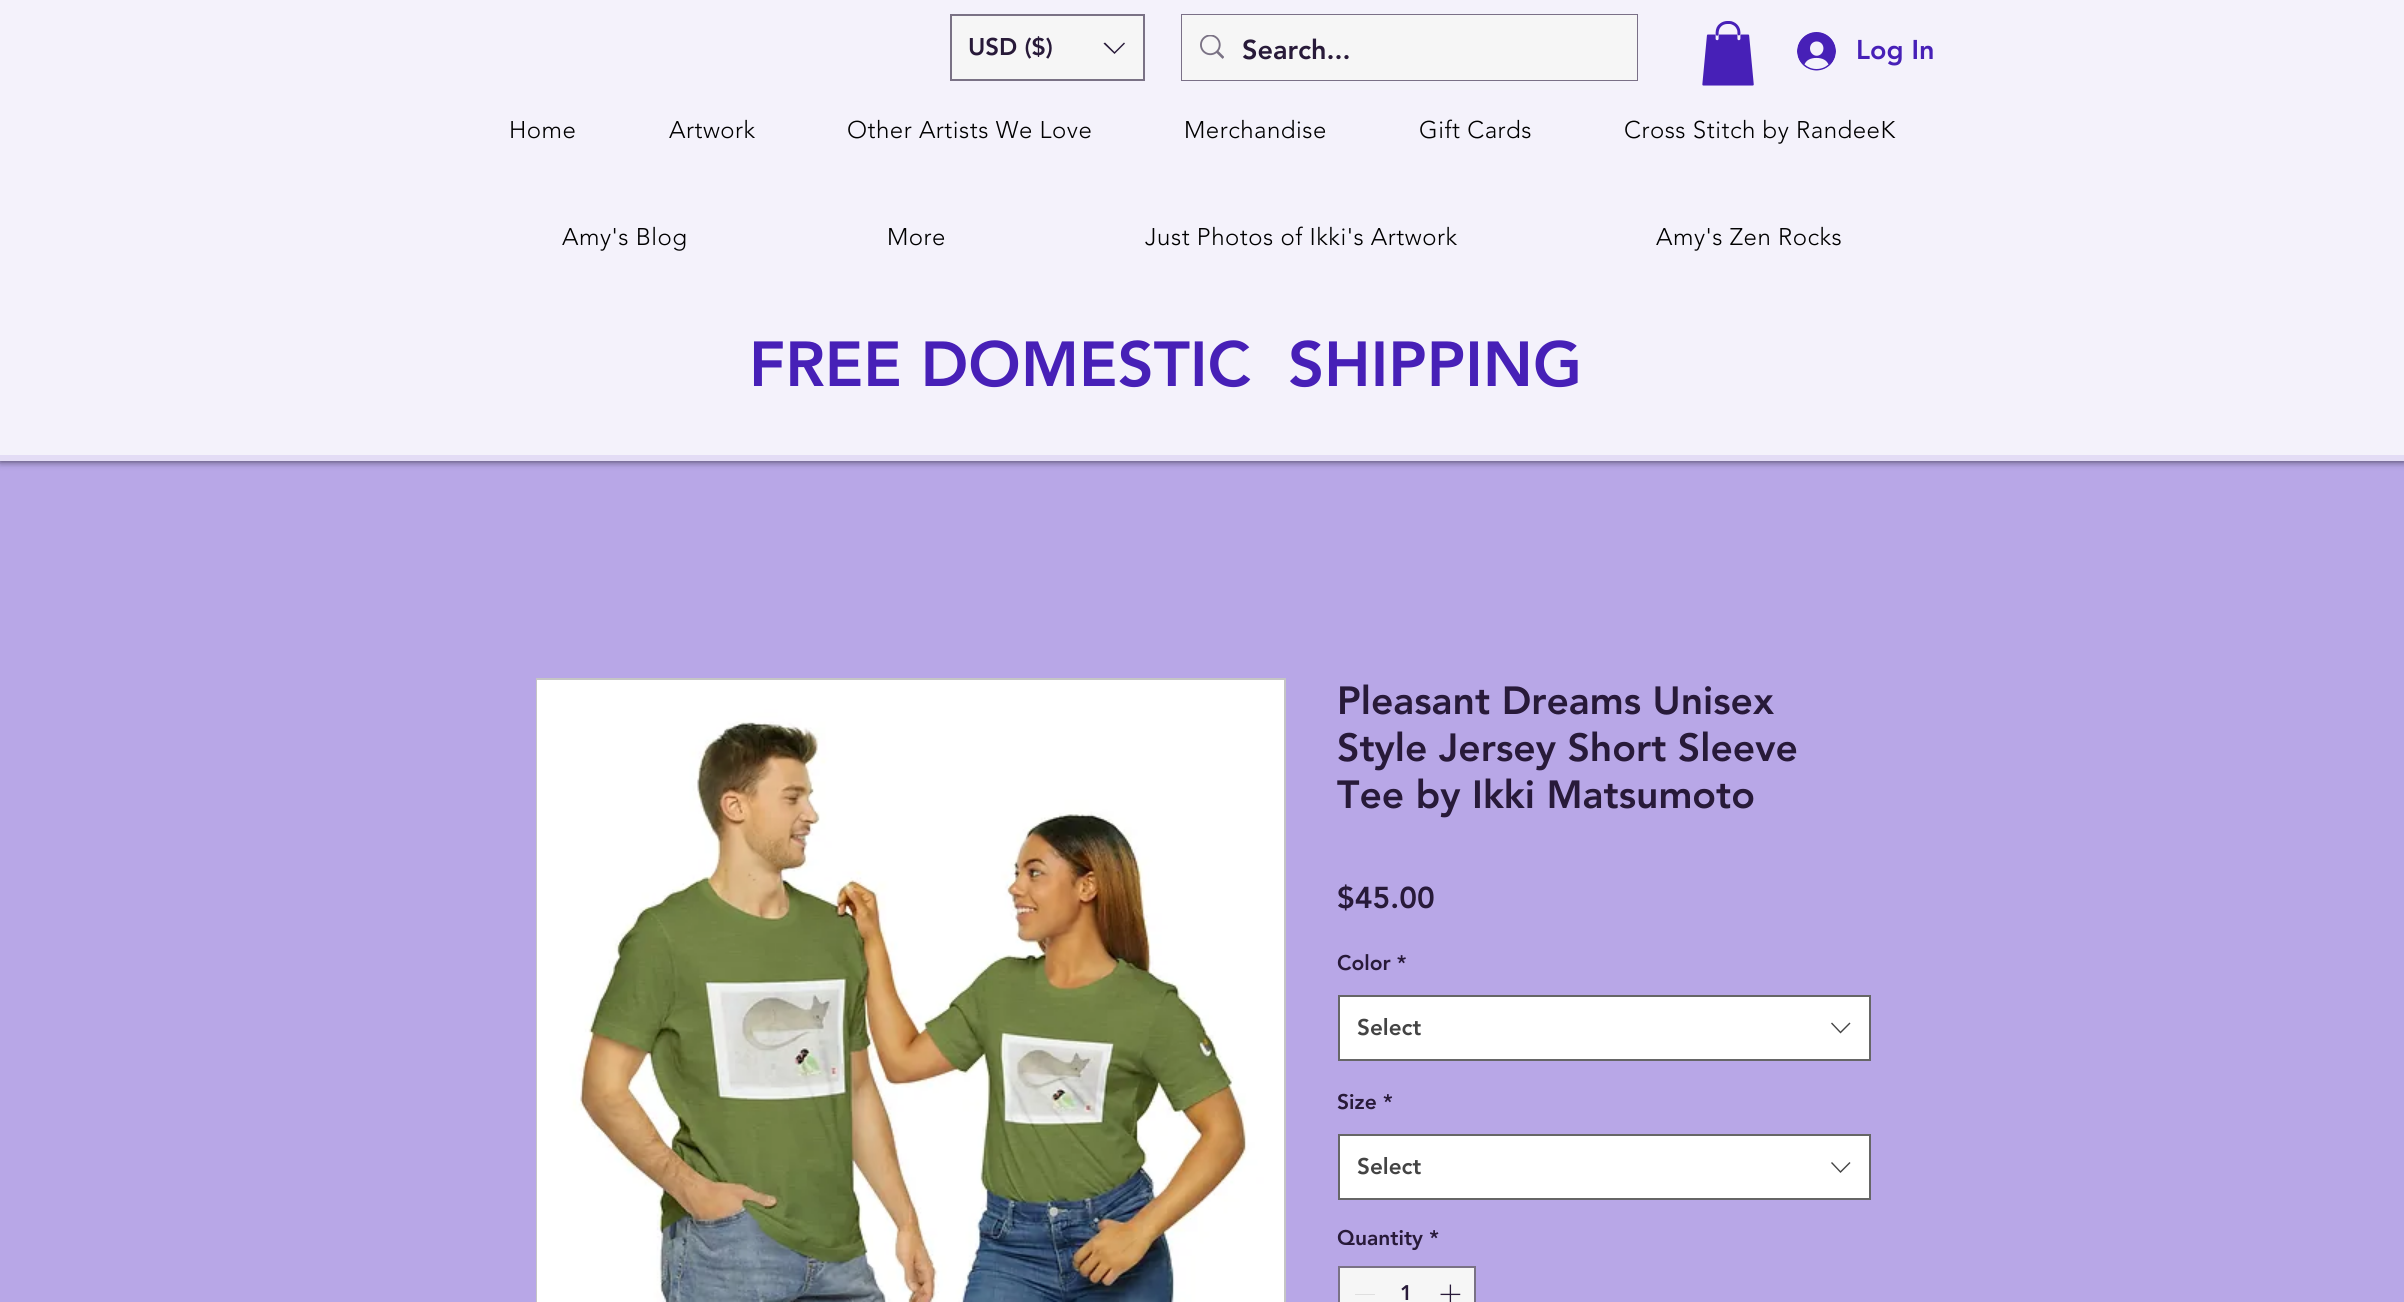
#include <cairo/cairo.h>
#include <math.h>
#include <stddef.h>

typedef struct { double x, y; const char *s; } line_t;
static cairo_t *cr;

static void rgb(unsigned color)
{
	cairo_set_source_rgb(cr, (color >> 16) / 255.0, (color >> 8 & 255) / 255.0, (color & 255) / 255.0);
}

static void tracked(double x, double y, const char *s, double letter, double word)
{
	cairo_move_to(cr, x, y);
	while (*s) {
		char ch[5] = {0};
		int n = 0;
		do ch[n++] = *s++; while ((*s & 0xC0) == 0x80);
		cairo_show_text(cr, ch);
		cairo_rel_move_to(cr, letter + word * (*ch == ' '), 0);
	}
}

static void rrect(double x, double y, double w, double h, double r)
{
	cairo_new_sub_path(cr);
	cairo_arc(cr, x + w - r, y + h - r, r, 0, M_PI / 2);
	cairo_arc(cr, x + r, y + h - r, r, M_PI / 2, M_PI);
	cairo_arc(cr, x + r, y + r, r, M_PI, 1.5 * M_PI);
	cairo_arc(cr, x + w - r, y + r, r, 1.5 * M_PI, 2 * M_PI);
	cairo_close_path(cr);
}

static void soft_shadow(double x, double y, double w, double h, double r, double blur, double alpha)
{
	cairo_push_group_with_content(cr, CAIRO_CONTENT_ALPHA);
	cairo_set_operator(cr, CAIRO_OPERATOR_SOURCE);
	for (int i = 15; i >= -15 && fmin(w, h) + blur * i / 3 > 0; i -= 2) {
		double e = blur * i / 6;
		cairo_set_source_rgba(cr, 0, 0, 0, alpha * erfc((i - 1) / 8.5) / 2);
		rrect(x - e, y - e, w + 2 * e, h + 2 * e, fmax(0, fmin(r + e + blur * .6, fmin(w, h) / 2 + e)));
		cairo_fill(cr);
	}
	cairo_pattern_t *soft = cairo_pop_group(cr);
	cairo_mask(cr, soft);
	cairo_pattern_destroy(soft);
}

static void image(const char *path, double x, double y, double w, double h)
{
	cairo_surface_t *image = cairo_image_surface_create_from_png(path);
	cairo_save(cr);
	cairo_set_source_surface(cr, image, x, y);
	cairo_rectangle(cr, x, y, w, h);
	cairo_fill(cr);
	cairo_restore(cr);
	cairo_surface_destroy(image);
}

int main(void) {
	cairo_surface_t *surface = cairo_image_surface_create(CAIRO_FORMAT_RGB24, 2404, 1302);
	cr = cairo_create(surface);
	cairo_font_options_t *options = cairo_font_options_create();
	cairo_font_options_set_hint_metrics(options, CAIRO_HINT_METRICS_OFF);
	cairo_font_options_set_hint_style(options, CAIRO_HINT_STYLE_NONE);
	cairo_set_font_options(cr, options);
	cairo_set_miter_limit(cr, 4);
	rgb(0xb8a7e7);
	cairo_paint(cr);
	cairo_save(cr);
	cairo_set_fill_rule(cr, CAIRO_FILL_RULE_EVEN_ODD);
	cairo_new_path(cr);
	cairo_move_to(cr, 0, 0);
	cairo_line_to(cr, 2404, 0);
	cairo_line_to(cr, 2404, 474);
	cairo_line_to(cr, 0, 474);
	cairo_close_path(cr);
	cairo_move_to(cr, 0, 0);
	cairo_line_to(cr, 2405, 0);
	cairo_line_to(cr, 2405, 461);
	cairo_line_to(cr, 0, 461);
	cairo_close_path(cr);
	cairo_clip(cr);
	rgb(0x000000);
	soft_shadow(0, 0, 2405, 461, 0, 4, 0.7);
	cairo_restore(cr);
	cairo_set_source_rgba(cr, 1, 1, 1, 0.6);
	cairo_rectangle(cr, 0, 455, 2404, 6);
	cairo_fill(cr);
	rgb(0xf4f2fb);
	cairo_rectangle(cr, 0, 0, 2404, 455);
	cairo_fill(cr);
	rgb(0xf6f6f6);
	cairo_rectangle(cr, 951, 15, 193, 65);
	cairo_fill_preserve(cr);
	rgb(0x7a7285);
	cairo_stroke(cr);
	rgb(0x281a39);
	cairo_set_fill_rule(cr, CAIRO_FILL_RULE_EVEN_ODD);
	cairo_new_path(cr);
	cairo_move_to(cr, 1124, 42.5);
	cairo_line_to(cr, 1125, 43.5);
	cairo_line_to(cr, 1114.5, 54);
	cairo_line_to(cr, 1103.5, 43.5);
	cairo_line_to(cr, 1105, 42.5);
	cairo_line_to(cr, 1114.5, 52);
	cairo_close_path(cr);
	cairo_fill(cr);
	cairo_rectangle(cr, 1182, 15, 455, 65);
	rgb(0x7a7087);
	cairo_stroke(cr);
	rgb(0xf6f6f6);
	cairo_rectangle(cr, 1182, 15, 455, 65);
	cairo_fill(cr);
	image("img/1.png", 1200, 35, 24, 24);
	image("img/2.png", 1702, 21, 52, 65);
	image("img/3.png", 1797, 32, 39, 39);
	cairo_rectangle(cr, 537, 679, 748, 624);
	rgb(0xc5c5c5);
	cairo_stroke(cr);
	image("img/4.png", 537, 680, 747, 622);
	rgb(0xffffff);
	cairo_rectangle(cr, 1339, 996, 531, 64);
	cairo_fill_preserve(cr);
	rgb(0x666666);
	cairo_stroke(cr);
	rgb(0x444444);
	cairo_new_path(cr);
	cairo_move_to(cr, 1849.5, 1022.5);
	cairo_line_to(cr, 1850.5, 1023.5);
	cairo_line_to(cr, 1840.5, 1033.5);
	cairo_line_to(cr, 1831, 1023.5);
	cairo_line_to(cr, 1832, 1022.5);
	cairo_line_to(cr, 1840.5, 1031.5);
	cairo_close_path(cr);
	cairo_fill(cr);
	rgb(0xffffff);
	cairo_rectangle(cr, 1339, 1135, 531, 64);
	cairo_fill_preserve(cr);
	rgb(0x666666);
	cairo_stroke(cr);
	rgb(0x444444);
	cairo_new_path(cr);
	cairo_move_to(cr, 1849.5, 1162);
	cairo_line_to(cr, 1850.5, 1163);
	cairo_line_to(cr, 1840.5, 1173);
	cairo_line_to(cr, 1831, 1163);
	cairo_line_to(cr, 1832, 1162);
	cairo_line_to(cr, 1840.5, 1171);
	cairo_close_path(cr);
	cairo_fill(cr);
	rgb(0xf6f6f6);
	cairo_rectangle(cr, 1339, 1267, 136, 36);
	cairo_fill_preserve(cr);
	rgb(0x7a7285);
	cairo_stroke(cr);
	rgb(0xdfdfdf);
	cairo_rectangle(cr, 1355, 1294, 20, 1);
	cairo_fill(cr);
	image("img/5.png", 1440, 1284, 21, 18);
	cairo_select_font_face(cr, "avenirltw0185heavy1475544 Black", CAIRO_FONT_SLANT_NORMAL, CAIRO_FONT_WEIGHT_NORMAL);
	cairo_set_font_size(cr, 24);
	rgb(0x281a39);
	cairo_move_to(cr, 968, 55);
	cairo_show_text(cr, "USD ($)");
	cairo_set_font_size(cr, 27);
	cairo_move_to(cr, 1242, 59);
	cairo_show_text(cr, "Search...");
	rgb(0x4720b7);
	cairo_move_to(cr, 1856, 59);
	cairo_show_text(cr, "Log In");
	cairo_select_font_face(cr, "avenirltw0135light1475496 Light", CAIRO_FONT_SLANT_NORMAL, CAIRO_FONT_WEIGHT_NORMAL);
	cairo_set_font_size(cr, 24);
	rgb(0x000000);
	{
		static const line_t items[] = {
			{509, 138, "Home"},
			{669, 138, "Artwork"},
			{847, 138, "Other Artists We Love"},
			{1184, 138, "Merchandise"},
			{1419, 138, "Gift Cards"},
			{1624, 138, "Cross Stitch by RandeeK"},
			{562, 245, "Amy's Blog"},
			{887, 245, "More"},
			{1145, 245, "Just Photos of Ikki's Artwork"},
			{1656, 245, "Amy's Zen Rocks"},
		};
		for (size_t i = 0; i < sizeof items / sizeof *items; i++) {
			tracked(items[i].x, items[i].y, items[i].s, 0.5, 0);
		}
	}
	cairo_select_font_face(cr, "avenirltw0185heavy1475544 Black", CAIRO_FONT_SLANT_NORMAL, CAIRO_FONT_WEIGHT_NORMAL);
	cairo_set_font_size(cr, 63);
	rgb(0x4720b7);
	cairo_move_to(cr, 749, 386);
	cairo_show_text(cr, "FREE DOMESTIC  SHIPPING");
	cairo_set_font_size(cr, 39);
	rgb(0x281a39);
	{
		static const line_t items[] = {
			{1337, 714, "Pleasant Dreams Unisex"},
			{1337, 761, "Style Jersey Short Sleeve"},
			{1337, 808, "Tee by Ikki Matsumoto"},
		};
		for (size_t i = 0; i < sizeof items / sizeof *items; i++) {
			cairo_move_to(cr, items[i].x, items[i].y);
			cairo_show_text(cr, items[i].s);
		}
	}
	cairo_set_font_size(cr, 30);
	cairo_move_to(cr, 1337, 908);
	cairo_show_text(cr, "$45.00");
	cairo_set_font_size(cr, 21);
	cairo_move_to(cr, 1337, 970);
	cairo_show_text(cr, "Color *");
	cairo_set_font_size(cr, 22.5);
	rgb(0x444444);
	cairo_move_to(cr, 1357, 1035);
	cairo_show_text(cr, "Select");
	cairo_set_font_size(cr, 21);
	rgb(0x281a39);
	cairo_move_to(cr, 1337, 1109);
	cairo_show_text(cr, "Size *");
	cairo_set_font_size(cr, 22.5);
	rgb(0x444444);
	cairo_move_to(cr, 1357, 1174);
	cairo_show_text(cr, "Select");
	cairo_set_font_size(cr, 21);
	rgb(0x281a39);
	cairo_move_to(cr, 1337, 1245);
	cairo_show_text(cr, "Quantity *");
	cairo_move_to(cr, 1400, 1300);
	cairo_show_text(cr, "1");
	cairo_surface_write_to_png(surface, "page.png");
	cairo_font_options_destroy(options);
	cairo_destroy(cr);
	cairo_surface_destroy(surface);
	return 0;
}
